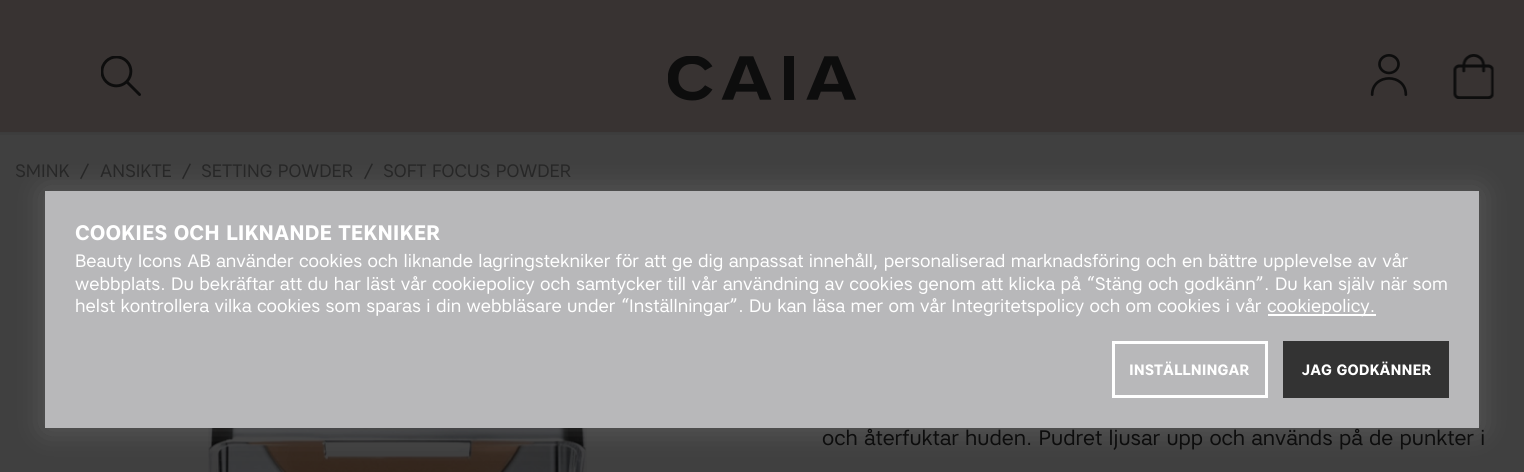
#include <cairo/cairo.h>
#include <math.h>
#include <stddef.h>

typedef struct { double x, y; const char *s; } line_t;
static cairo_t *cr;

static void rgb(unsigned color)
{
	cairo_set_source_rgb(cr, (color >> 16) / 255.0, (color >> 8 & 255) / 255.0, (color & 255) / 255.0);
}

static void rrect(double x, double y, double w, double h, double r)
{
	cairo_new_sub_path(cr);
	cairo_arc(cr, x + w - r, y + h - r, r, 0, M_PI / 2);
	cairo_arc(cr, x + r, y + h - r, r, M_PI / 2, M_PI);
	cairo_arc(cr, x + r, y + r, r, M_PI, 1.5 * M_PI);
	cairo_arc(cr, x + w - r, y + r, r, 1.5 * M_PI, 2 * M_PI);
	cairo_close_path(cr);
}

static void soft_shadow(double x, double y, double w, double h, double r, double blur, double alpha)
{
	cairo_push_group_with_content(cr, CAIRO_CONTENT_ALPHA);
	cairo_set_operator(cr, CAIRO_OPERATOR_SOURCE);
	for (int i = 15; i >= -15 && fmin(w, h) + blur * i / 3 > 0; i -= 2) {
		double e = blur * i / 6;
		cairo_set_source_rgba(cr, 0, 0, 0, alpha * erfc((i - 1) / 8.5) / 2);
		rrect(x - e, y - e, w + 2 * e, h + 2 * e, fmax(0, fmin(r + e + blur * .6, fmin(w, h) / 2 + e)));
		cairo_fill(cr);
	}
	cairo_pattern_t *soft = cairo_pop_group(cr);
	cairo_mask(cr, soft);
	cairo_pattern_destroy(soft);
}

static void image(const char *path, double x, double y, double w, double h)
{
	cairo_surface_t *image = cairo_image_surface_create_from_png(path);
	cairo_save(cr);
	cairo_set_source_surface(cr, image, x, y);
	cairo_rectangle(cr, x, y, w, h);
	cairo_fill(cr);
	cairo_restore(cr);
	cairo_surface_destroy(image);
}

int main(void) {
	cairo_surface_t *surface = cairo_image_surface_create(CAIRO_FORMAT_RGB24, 1524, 472);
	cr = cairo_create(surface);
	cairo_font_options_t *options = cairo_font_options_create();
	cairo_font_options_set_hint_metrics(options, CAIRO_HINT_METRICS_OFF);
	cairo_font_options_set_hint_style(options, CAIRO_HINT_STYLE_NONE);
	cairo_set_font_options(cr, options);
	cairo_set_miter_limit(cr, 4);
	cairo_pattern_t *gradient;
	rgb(0x404040);
	cairo_paint(cr);
	rgb(0x383332);
	cairo_rectangle(cr, 0, 0, 1524, 132);
	cairo_fill(cr);
	image("img/1.png", 101, 56, 40, 40);
	image("img/2.png", 668, 56, 189, 45);
	image("img/3.png", 1370, 54, 38, 42);
	image("img/4.png", 1453, 54, 42, 45);
	gradient = cairo_pattern_create_linear(762, 141, 762, 132);
	cairo_pattern_add_color_stop_rgba(gradient, 0, 0.251, 0.251, 0.251, 1);
	cairo_pattern_add_color_stop_rgba(gradient, 1, 0.235, 0.235, 0.235, 1);
	cairo_set_source(cr, gradient);
	cairo_pattern_destroy(gradient);
	cairo_rectangle(cr, 0, 132, 1524, 3);
	cairo_fill(cr);
	image("img/5.png", 208, 428, 379, 44);
	rgb(0x7b7b7b);
	soft_shadow(45, 192, 1434, 237, 0, 15, 0.44);
	rgb(0xb8b8ba);
	cairo_rectangle(cr, 45, 191, 1434, 237);
	cairo_fill(cr);
	rgb(0xffffff);
	cairo_rectangle(cr, 1268, 314, 108, 2);
	cairo_fill(cr);
	cairo_rectangle(cr, 1113.5, 342.5, 153, 54);
	cairo_set_line_width(cr, 3);
	cairo_stroke(cr);
	rgb(0x333333);
	cairo_rectangle(cr, 1283, 341, 166, 57);
	cairo_fill(cr);
	cairo_select_font_face(cr, "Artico", CAIRO_FONT_SLANT_NORMAL, CAIRO_FONT_WEIGHT_NORMAL);
	cairo_set_font_size(cr, 18);
	rgb(0x272727);
	{
		static const line_t items[] = {
			{15, 177, "SMINK"},
			{80, 177, "/"},
			{100, 177, "ANSIKTE"},
			{182, 177, "/"},
			{201, 177, "SETTING POWDER"},
			{364, 177, "/"},
			{383, 177, "SOFT FOCUS POWDER"},
		};
		for (size_t i = 0; i < sizeof items / sizeof *items; i++) {
			cairo_move_to(cr, items[i].x, items[i].y);
			cairo_show_text(cr, items[i].s);
		}
	}
	cairo_set_font_size(cr, 21);
	rgb(0x0d0d0d);
	cairo_move_to(cr, 822, 445);
	cairo_show_text(cr, "och återfuktar huden. Pudret ljusar upp och används på de punkter i");
	cairo_select_font_face(cr, "Artico", CAIRO_FONT_SLANT_NORMAL, CAIRO_FONT_WEIGHT_BOLD);
	rgb(0xffffff);
	cairo_move_to(cr, 75, 240);
	cairo_show_text(cr, "COOKIES OCH LIKNANDE TEKNIKER");
	cairo_select_font_face(cr, "Artico", CAIRO_FONT_SLANT_NORMAL, CAIRO_FONT_WEIGHT_NORMAL);
	cairo_set_font_size(cr, 18);
	{
		static const line_t items[] = {
			{75, 267, "Beauty Icons AB använder cookies och liknande lagringstekniker för att ge dig anpassat innehåll, personaliserad marknadsföring och en bättre upplevelse av vår"},
			{75, 290, "webbplats. Du bekräftar att du har läst vår cookiepolicy och samtycker till vår användning av cookies genom att klicka på “Stäng och godkänn”. Du kan själv när som"},
			{75, 312, "helst kontrollera vilka cookies som sparas i din webbläsare under “Inställningar”. Du kan läsa mer om vår Integritetspolicy och om cookies i vår"},
			{1267, 312, "cookiepolicy."},
		};
		for (size_t i = 0; i < sizeof items / sizeof *items; i++) {
			cairo_move_to(cr, items[i].x, items[i].y);
			cairo_show_text(cr, items[i].s);
		}
	}
	cairo_select_font_face(cr, "Artico", CAIRO_FONT_SLANT_NORMAL, CAIRO_FONT_WEIGHT_BOLD);
	cairo_set_font_size(cr, 15);
	cairo_move_to(cr, 1129, 375);
	cairo_show_text(cr, "INSTÄLLNINGAR");
	cairo_move_to(cr, 1301, 375);
	cairo_show_text(cr, "JAG GODKÄNNER");
	cairo_surface_write_to_png(surface, "page.png");
	cairo_font_options_destroy(options);
	cairo_destroy(cr);
	cairo_surface_destroy(surface);
	return 0;
}
